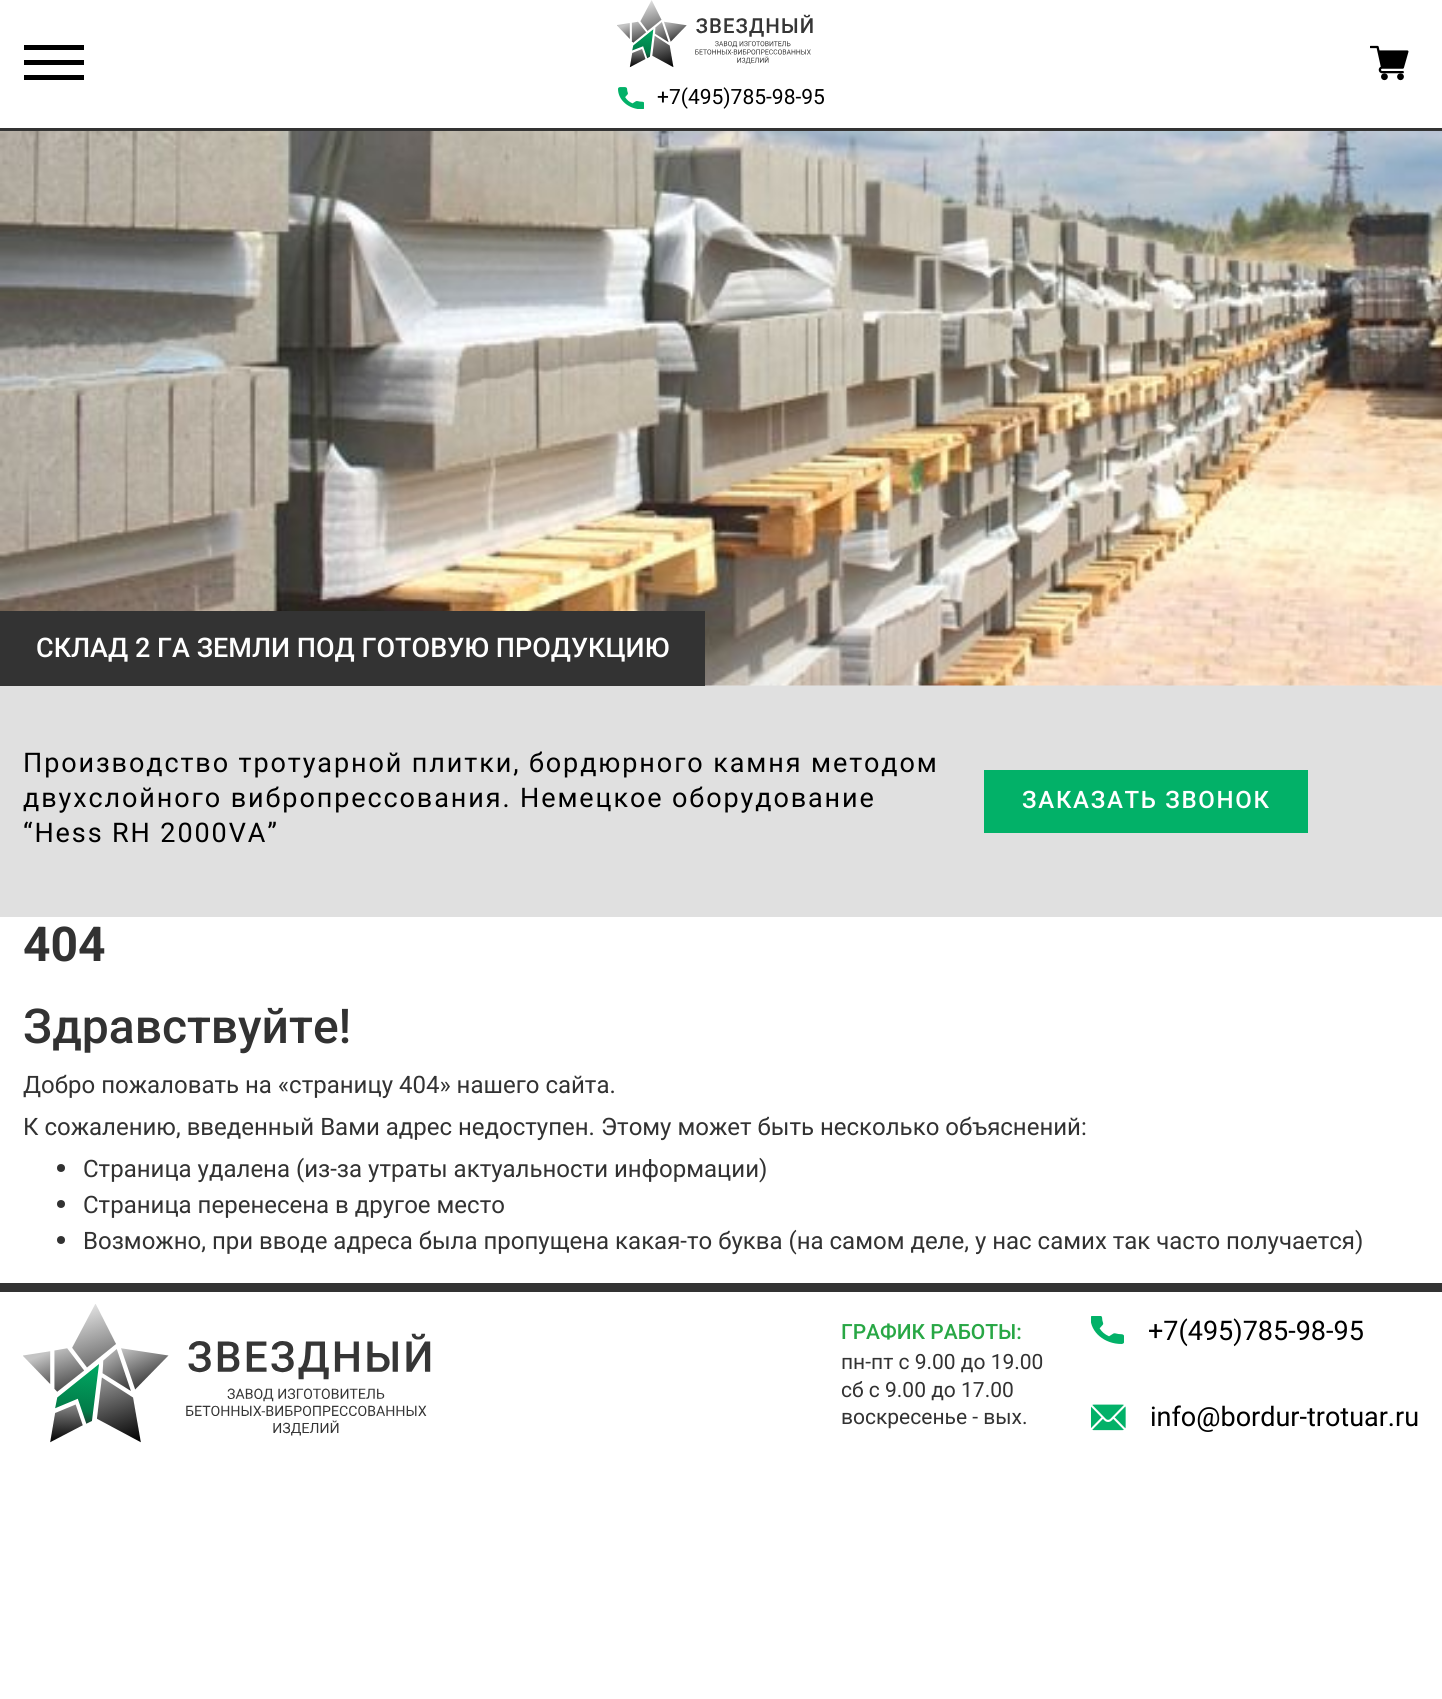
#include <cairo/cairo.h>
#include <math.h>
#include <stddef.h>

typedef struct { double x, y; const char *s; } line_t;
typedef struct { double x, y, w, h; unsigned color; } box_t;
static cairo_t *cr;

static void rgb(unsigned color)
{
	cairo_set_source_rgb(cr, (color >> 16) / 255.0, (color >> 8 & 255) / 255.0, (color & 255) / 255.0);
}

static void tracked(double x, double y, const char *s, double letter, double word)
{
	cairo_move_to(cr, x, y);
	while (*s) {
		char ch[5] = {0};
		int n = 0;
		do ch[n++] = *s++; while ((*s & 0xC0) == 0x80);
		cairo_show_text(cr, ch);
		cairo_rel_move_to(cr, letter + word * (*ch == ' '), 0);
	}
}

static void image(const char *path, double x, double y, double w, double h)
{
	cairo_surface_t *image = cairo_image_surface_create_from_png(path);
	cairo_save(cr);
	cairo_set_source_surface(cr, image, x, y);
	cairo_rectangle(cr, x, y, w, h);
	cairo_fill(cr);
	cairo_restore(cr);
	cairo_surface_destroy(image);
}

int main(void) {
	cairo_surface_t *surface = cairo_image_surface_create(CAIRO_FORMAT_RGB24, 1442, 1699);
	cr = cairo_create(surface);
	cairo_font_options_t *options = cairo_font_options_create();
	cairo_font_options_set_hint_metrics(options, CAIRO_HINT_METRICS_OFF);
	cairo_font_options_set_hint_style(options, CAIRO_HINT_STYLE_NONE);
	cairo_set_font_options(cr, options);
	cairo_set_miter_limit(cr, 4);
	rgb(0xffffff);
	cairo_paint(cr);
	{
		static const box_t items[] = {
			{24, 75, 60, 5, 0x000000},
			{24, 45, 60, 5, 0x000000},
			{24, 60, 60, 5, 0x000000},
			{0, 128, 1442, 3, 0x333333},
		};
		for (size_t i = 0; i < sizeof items / sizeof *items; i++) {
			rgb(items[i].color);
			cairo_rectangle(cr, items[i].x, items[i].y, items[i].w, items[i].h);
			cairo_fill(cr);
		}
	}
	image("img/1.png", 1370, 45, 39, 36);
	image("img/2.png", 617, 0, 196, 68);
	image("img/3.png", 618, 87, 26, 22);
	rgb(0xe0e0e0);
	cairo_rectangle(cr, 0, 685, 1442, 232);
	cairo_fill(cr);
	image("img/4.png", 0, 131, 1442, 555);
	rgb(0x333333);
	cairo_rectangle(cr, 0, 611, 705, 75);
	cairo_fill(cr);
	rgb(0x02b168);
	cairo_rectangle(cr, 984, 770, 324, 63);
	cairo_fill(cr);
	rgb(0x323232);
	cairo_arc(cr, 61, 1168, 4, 0, 2 * M_PI);
	cairo_fill(cr);
	cairo_arc(cr, 61, 1204, 4, 0, 2 * M_PI);
	cairo_fill(cr);
	cairo_arc(cr, 61, 1240, 4, 0, 2 * M_PI);
	cairo_fill(cr);
	rgb(0x333333);
	cairo_rectangle(cr, 0, 1283, 1442, 9);
	cairo_fill(cr);
	image("img/5.png", 23, 1304, 408, 139);
	image("img/6.png", 1091, 1316, 33, 28);
	image("img/7.png", 1091, 1404, 35, 27);
	cairo_select_font_face(cr, "Roboto", CAIRO_FONT_SLANT_NORMAL, CAIRO_FONT_WEIGHT_NORMAL);
	cairo_set_font_size(cr, 21);
	rgb(0x000000);
	cairo_move_to(cr, 657, 104);
	cairo_show_text(cr, "+7(495)785-98-95");
	cairo_select_font_face(cr, "Roboto Medium", CAIRO_FONT_SLANT_NORMAL, CAIRO_FONT_WEIGHT_NORMAL);
	cairo_set_font_size(cr, 27);
	rgb(0xffffff);
	cairo_move_to(cr, 36, 657);
	cairo_show_text(cr, "СКЛАД 2 ГА ЗЕМЛИ ПОД ГОТОВУЮ ПРОДУКЦИЮ");
	cairo_select_font_face(cr, "Roboto", CAIRO_FONT_SLANT_NORMAL, CAIRO_FONT_WEIGHT_NORMAL);
	rgb(0x000000);
	{
		static const line_t items[] = {
			{23, 772, "Производство тротуарной плитки, бордюрного камня методом"},
			{23, 807, "двухслойного вибропресcования. Немецкое оборудование"},
			{23, 842, "“Hess RH 2000VA”"},
		};
		for (size_t i = 0; i < sizeof items / sizeof *items; i++) {
			tracked(items[i].x, items[i].y, items[i].s, 1.9, 0);
		}
	}
	cairo_select_font_face(cr, "Roboto Medium", CAIRO_FONT_SLANT_NORMAL, CAIRO_FONT_WEIGHT_NORMAL);
	cairo_set_font_size(cr, 24);
	rgb(0xffffff);
	tracked(1022, 808, "ЗАКАЗАТЬ ЗВОНОК", 1.7, 0);
	cairo_select_font_face(cr, "Roboto", CAIRO_FONT_SLANT_NORMAL, CAIRO_FONT_WEIGHT_BOLD);
	cairo_set_font_size(cr, 48);
	rgb(0x323232);
	cairo_move_to(cr, 23, 961);
	cairo_show_text(cr, "404");
	cairo_select_font_face(cr, "Roboto Medium", CAIRO_FONT_SLANT_NORMAL, CAIRO_FONT_WEIGHT_NORMAL);
	cairo_move_to(cr, 23, 1043);
	cairo_show_text(cr, "Здравствуйте!");
	cairo_select_font_face(cr, "Roboto", CAIRO_FONT_SLANT_NORMAL, CAIRO_FONT_WEIGHT_NORMAL);
	cairo_set_font_size(cr, 24);
	{
		static const line_t items[] = {
			{23, 1093, "Добро пожаловать на «страницу 404» нашего сайта."},
			{23, 1135, "К сожалению, введенный Вами адрес недоступен. Этому может быть несколько объяснений:"},
			{83, 1177, "Страница удалена (из-за утраты актуальности информации)"},
			{83, 1213, "Страница перенесена в другое место"},
			{83, 1249, "Возможно, при вводе адреса была пропущена какая-то буква (на самом деле, у нас самих так часто получается)"},
		};
		for (size_t i = 0; i < sizeof items / sizeof *items; i++) {
			cairo_move_to(cr, items[i].x, items[i].y);
			cairo_show_text(cr, items[i].s);
		}
	}
	cairo_select_font_face(cr, "Roboto Medium", CAIRO_FONT_SLANT_NORMAL, CAIRO_FONT_WEIGHT_NORMAL);
	cairo_set_font_size(cr, 21);
	rgb(0x28a745);
	cairo_move_to(cr, 841, 1339);
	cairo_show_text(cr, "ГРАФИК РАБОТЫ:");
	cairo_select_font_face(cr, "Roboto", CAIRO_FONT_SLANT_NORMAL, CAIRO_FONT_WEIGHT_NORMAL);
	rgb(0x323232);
	{
		static const line_t items[] = {
			{841, 1369, "пн-пт с 9.00 до 19.00"},
			{841, 1397, "сб с 9.00 до 17.00"},
			{841, 1424, "воскресенье - вых."},
		};
		for (size_t i = 0; i < sizeof items / sizeof *items; i++) {
			cairo_move_to(cr, items[i].x, items[i].y);
			cairo_show_text(cr, items[i].s);
		}
	}
	cairo_set_font_size(cr, 27);
	rgb(0x000000);
	cairo_move_to(cr, 1148, 1340);
	cairo_show_text(cr, "+7(495)785-98-95");
	cairo_move_to(cr, 1150, 1426);
	cairo_show_text(cr, "info@bordur-trotuar.ru");
	cairo_surface_write_to_png(surface, "page.png");
	cairo_font_options_destroy(options);
	cairo_destroy(cr);
	cairo_surface_destroy(surface);
	return 0;
}
